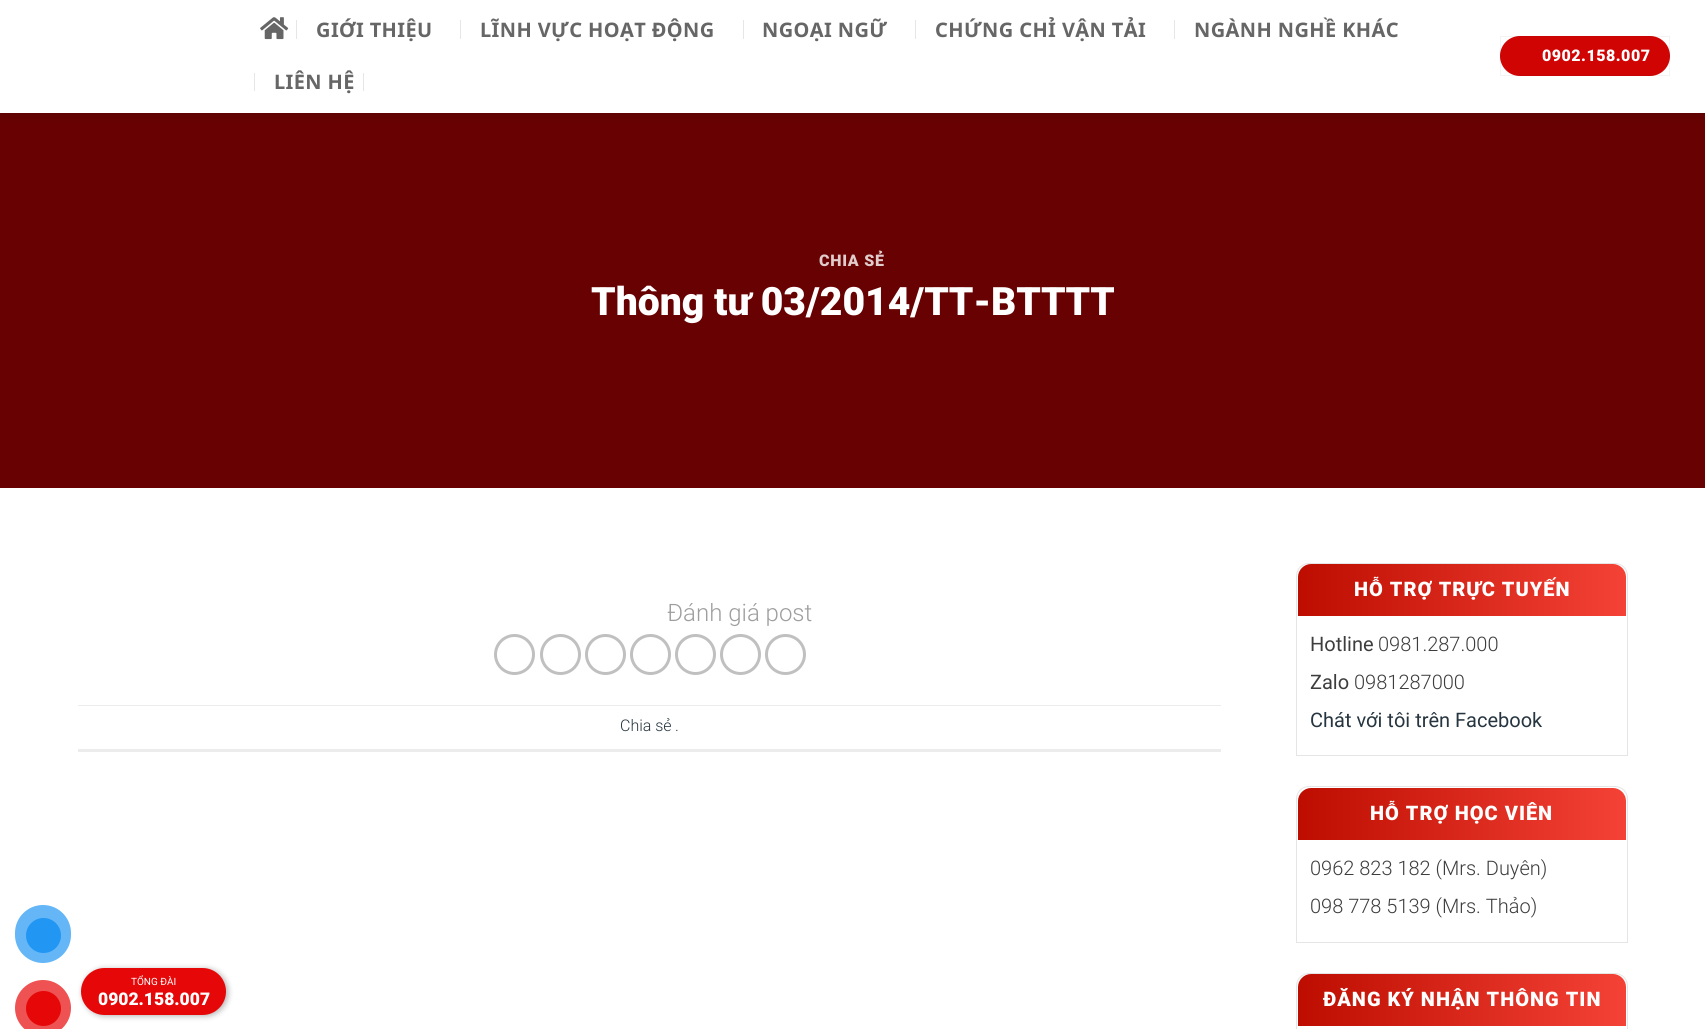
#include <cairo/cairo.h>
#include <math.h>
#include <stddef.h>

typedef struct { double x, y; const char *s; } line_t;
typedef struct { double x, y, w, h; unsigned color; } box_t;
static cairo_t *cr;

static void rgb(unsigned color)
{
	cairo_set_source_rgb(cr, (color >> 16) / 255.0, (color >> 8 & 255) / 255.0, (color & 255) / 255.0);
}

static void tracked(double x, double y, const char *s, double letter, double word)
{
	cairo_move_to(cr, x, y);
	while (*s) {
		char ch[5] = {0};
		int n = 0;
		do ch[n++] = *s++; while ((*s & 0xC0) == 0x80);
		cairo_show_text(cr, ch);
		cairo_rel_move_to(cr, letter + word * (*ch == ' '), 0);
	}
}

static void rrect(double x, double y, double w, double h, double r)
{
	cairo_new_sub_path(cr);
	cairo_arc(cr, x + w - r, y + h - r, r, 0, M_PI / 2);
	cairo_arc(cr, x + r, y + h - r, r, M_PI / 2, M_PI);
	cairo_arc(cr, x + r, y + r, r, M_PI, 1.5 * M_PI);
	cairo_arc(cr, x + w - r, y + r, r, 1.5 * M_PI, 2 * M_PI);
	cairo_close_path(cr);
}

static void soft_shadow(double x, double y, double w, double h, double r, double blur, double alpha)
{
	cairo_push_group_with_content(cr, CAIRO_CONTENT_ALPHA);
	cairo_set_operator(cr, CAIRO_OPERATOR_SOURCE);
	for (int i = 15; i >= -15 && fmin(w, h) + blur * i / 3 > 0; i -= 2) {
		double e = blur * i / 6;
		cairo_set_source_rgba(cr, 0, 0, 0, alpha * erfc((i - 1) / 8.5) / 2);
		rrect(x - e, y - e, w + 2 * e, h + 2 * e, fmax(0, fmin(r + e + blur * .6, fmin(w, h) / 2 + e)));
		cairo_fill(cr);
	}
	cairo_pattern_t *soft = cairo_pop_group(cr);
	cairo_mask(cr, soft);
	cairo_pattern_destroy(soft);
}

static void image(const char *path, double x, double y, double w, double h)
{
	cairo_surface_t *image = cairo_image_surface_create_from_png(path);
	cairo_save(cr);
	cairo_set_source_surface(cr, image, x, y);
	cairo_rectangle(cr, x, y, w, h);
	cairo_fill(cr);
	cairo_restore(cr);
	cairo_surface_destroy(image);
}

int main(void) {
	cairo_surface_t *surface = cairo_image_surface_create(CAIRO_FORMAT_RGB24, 1705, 1029);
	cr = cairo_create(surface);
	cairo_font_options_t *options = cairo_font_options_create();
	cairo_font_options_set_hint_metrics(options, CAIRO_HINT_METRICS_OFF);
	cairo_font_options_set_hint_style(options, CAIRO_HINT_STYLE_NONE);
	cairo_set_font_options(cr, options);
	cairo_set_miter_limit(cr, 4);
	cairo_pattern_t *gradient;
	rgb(0xffffff);
	cairo_paint(cr);
	rgb(0x64b6f7);
	rrect(15, 905, 56, 58, 28);
	cairo_fill(cr);
	rgb(0x2196f3);
	cairo_arc(cr, 43.5, 935.5, 17.5, 0, 2 * M_PI);
	cairo_fill(cr);
	rgb(0xee5252);
	cairo_arc(cr, 43, 1008, 28, 0, 2 * M_PI);
	cairo_fill(cr);
	rgb(0xe60808);
	cairo_arc(cr, 43.5, 1008.5, 17.5, 0, 2 * M_PI);
	cairo_fill(cr);
	rgb(0x000000);
	soft_shadow(83, 969, 145, 47, 23.5, 3, 0.3);
	rgb(0xe60808);
	rrect(81, 968, 145, 47, 23.5);
	cairo_fill(cr);
	rgb(0x680202);
	cairo_rectangle(cr, 0, 113, 1705, 375);
	cairo_fill(cr);
	cairo_save(cr);
	cairo_set_fill_rule(cr, CAIRO_FILL_RULE_EVEN_ODD);
	cairo_new_path(cr);
	cairo_move_to(cr, 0, 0);
	cairo_line_to(cr, 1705, 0);
	cairo_line_to(cr, 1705, 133);
	cairo_line_to(cr, 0, 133);
	cairo_close_path(cr);
	cairo_move_to(cr, 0, 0);
	cairo_line_to(cr, 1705, 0);
	cairo_line_to(cr, 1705, 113);
	cairo_line_to(cr, 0, 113);
	cairo_close_path(cr);
	cairo_clip(cr);
	rgb(0x000000);
	soft_shadow(1, 1, 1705, 113, 0, 6, 0.15);
	cairo_restore(cr);
	image("img/1.png", 260, 17, 29, 23);
	{
		static const box_t items[] = {
			{296, 20, 1, 19, 0xe6e6e6},
			{460, 20, 1, 19, 0xe6e6e6},
			{743, 20, 1, 19, 0xe6e6e6},
			{915, 20, 1, 19, 0xe6e6e6},
			{1174, 20, 1, 19, 0xe6e6e6},
			{254, 73, 1, 18, 0xe6e6e6},
			{363, 73, 1, 18, 0xe6e6e6},
		};
		for (size_t i = 0; i < sizeof items / sizeof *items; i++) {
			rgb(items[i].color);
			cairo_rectangle(cr, items[i].x, items[i].y, items[i].w, items[i].h);
			cairo_fill(cr);
		}
	}
	rgb(0xd10404);
	rrect(1500, 36, 170, 40, 20);
	cairo_fill(cr);
	cairo_rectangle(cr, 1500.5, 36.5, 169, 39);
	cairo_set_source_rgba(cr, 0, 0, 0, 0.05);
	cairo_set_line_width(cr, 1);
	cairo_stroke(cr);
	cairo_set_source_rgba(cr, 1, 1, 1, 0.9);
	cairo_rectangle(cr, 0, 112, 1705, 1);
	cairo_fill(cr);
	cairo_arc(cr, 514.5, 654.5, 19, 0, 2 * M_PI);
	rgb(0xc0c0c0);
	cairo_set_line_width(cr, 3);
	cairo_stroke(cr);
	cairo_arc(cr, 560.5, 654.5, 19, 0, 2 * M_PI);
	cairo_stroke(cr);
	cairo_arc(cr, 605.5, 654.5, 19, 0, 2 * M_PI);
	cairo_stroke(cr);
	cairo_arc(cr, 650.5, 654.5, 19, 0, 2 * M_PI);
	cairo_stroke(cr);
	cairo_arc(cr, 695.5, 654.5, 19, 0, 2 * M_PI);
	cairo_stroke(cr);
	cairo_arc(cr, 740.5, 654.5, 19, 0, 2 * M_PI);
	cairo_stroke(cr);
	cairo_arc(cr, 785.5, 654.5, 19, 0, 2 * M_PI);
	cairo_stroke(cr);
	rgb(0xececec);
	cairo_rectangle(cr, 78, 705, 1143, 1);
	cairo_fill(cr);
	cairo_rectangle(cr, 78, 749, 1143, 3);
	cairo_fill(cr);
	cairo_new_path(cr);
	cairo_move_to(cr, 1309, 563.5);
	cairo_line_to(cr, 1615, 563.5);
	cairo_curve_to(cr, 1622, 563.5, 1627.5, 569, 1627.5, 576);
	cairo_line_to(cr, 1627.5, 755.5);
	cairo_line_to(cr, 1296.5, 755.5);
	cairo_line_to(cr, 1296.5, 576);
	cairo_curve_to(cr, 1296.5, 569, 1302, 563.5, 1309, 563.5);
	cairo_close_path(cr);
	rgb(0xe5e5e5);
	cairo_set_line_width(cr, 1);
	cairo_stroke(cr);
	gradient = cairo_pattern_create_linear(1298, 590, 1626, 590);
	cairo_pattern_add_color_stop_rgba(gradient, 0, 0.741, 0.051, 0, 1);
	cairo_pattern_add_color_stop_rgba(gradient, 1, 0.957, 0.263, 0.212, 1);
	cairo_set_source(cr, gradient);
	cairo_pattern_destroy(gradient);
	cairo_new_path(cr);
	cairo_move_to(cr, 1311, 564);
	cairo_line_to(cr, 1613, 564);
	cairo_curve_to(cr, 1620, 564, 1626, 570, 1626, 577);
	cairo_line_to(cr, 1626, 616);
	cairo_line_to(cr, 1298, 616);
	cairo_line_to(cr, 1298, 577);
	cairo_curve_to(cr, 1298, 570, 1304, 564, 1311, 564);
	cairo_close_path(cr);
	cairo_fill(cr);
	cairo_new_path(cr);
	cairo_move_to(cr, 1309, 786.5);
	cairo_line_to(cr, 1615, 786.5);
	cairo_curve_to(cr, 1622, 786.5, 1627.5, 792, 1627.5, 799);
	cairo_line_to(cr, 1627.5, 942.5);
	cairo_line_to(cr, 1296.5, 942.5);
	cairo_line_to(cr, 1296.5, 799);
	cairo_curve_to(cr, 1296.5, 792, 1302, 786.5, 1309, 786.5);
	cairo_close_path(cr);
	rgb(0xe5e5e5);
	cairo_stroke(cr);
	gradient = cairo_pattern_create_linear(1298, 814, 1626, 814);
	cairo_pattern_add_color_stop_rgba(gradient, 0, 0.741, 0.051, 0, 1);
	cairo_pattern_add_color_stop_rgba(gradient, 1, 0.957, 0.263, 0.212, 1);
	cairo_set_source(cr, gradient);
	cairo_pattern_destroy(gradient);
	cairo_new_path(cr);
	cairo_move_to(cr, 1311, 788);
	cairo_line_to(cr, 1613, 788);
	cairo_curve_to(cr, 1620, 788, 1626, 794, 1626, 801);
	cairo_line_to(cr, 1626, 840);
	cairo_line_to(cr, 1298, 840);
	cairo_line_to(cr, 1298, 801);
	cairo_curve_to(cr, 1298, 794, 1304, 788, 1311, 788);
	cairo_close_path(cr);
	cairo_fill(cr);
	cairo_new_path(cr);
	cairo_move_to(cr, 1309, 973.5);
	cairo_line_to(cr, 1615, 973.5);
	cairo_curve_to(cr, 1622, 973.5, 1627.5, 979, 1627.5, 986);
	cairo_line_to(cr, 1627.5, 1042.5);
	cairo_line_to(cr, 1296.5, 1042.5);
	cairo_line_to(cr, 1296.5, 986);
	cairo_curve_to(cr, 1296.5, 979, 1302, 973.5, 1309, 973.5);
	cairo_close_path(cr);
	rgb(0xe5e5e5);
	cairo_stroke(cr);
	gradient = cairo_pattern_create_linear(1298, 1000, 1626, 1000);
	cairo_pattern_add_color_stop_rgba(gradient, 0, 0.741, 0.051, 0, 1);
	cairo_pattern_add_color_stop_rgba(gradient, 1, 0.957, 0.263, 0.212, 1);
	cairo_set_source(cr, gradient);
	cairo_pattern_destroy(gradient);
	cairo_new_path(cr);
	cairo_move_to(cr, 1311, 974);
	cairo_line_to(cr, 1613, 974);
	cairo_curve_to(cr, 1620, 974, 1626, 980, 1626, 987);
	cairo_line_to(cr, 1626, 1026);
	cairo_line_to(cr, 1298, 1026);
	cairo_line_to(cr, 1298, 987);
	cairo_curve_to(cr, 1298, 980, 1304, 974, 1311, 974);
	cairo_close_path(cr);
	cairo_fill(cr);
	cairo_select_font_face(cr, "Roboto", CAIRO_FONT_SLANT_NORMAL, CAIRO_FONT_WEIGHT_NORMAL);
	cairo_set_font_size(cr, 10);
	rgb(0xffffff);
	cairo_move_to(cr, 131, 985);
	cairo_show_text(cr, "TỔNG ĐÀI");
	cairo_select_font_face(cr, "Roboto Black", CAIRO_FONT_SLANT_NORMAL, CAIRO_FONT_WEIGHT_NORMAL);
	cairo_set_font_size(cr, 17.5);
	cairo_move_to(cr, 98, 1005);
	cairo_show_text(cr, "0902.158.007");
	cairo_select_font_face(cr, "Noto Sans", CAIRO_FONT_SLANT_NORMAL, CAIRO_FONT_WEIGHT_BOLD);
	cairo_set_font_size(cr, 20);
	rgb(0x666666);
	{
		static const line_t items[] = {
			{316, 37, "GIỚI THIỆU"},
			{480, 37, "LĨNH VỰC HOẠT ĐỘNG"},
			{762, 37, "NGOẠI NGỮ"},
			{935, 37, "CHỨNG CHỈ VẬN TẢI"},
			{1194, 37, "NGÀNH NGHỀ KHÁC"},
			{274, 89, "LIÊN HỆ"},
		};
		for (size_t i = 0; i < sizeof items / sizeof *items; i++) {
			tracked(items[i].x, items[i].y, items[i].s, 0.4, 0);
		}
	}
	cairo_select_font_face(cr, "Roboto Black", CAIRO_FONT_SLANT_NORMAL, CAIRO_FONT_WEIGHT_NORMAL);
	cairo_set_font_size(cr, 16);
	rgb(0xffffff);
	tracked(1542, 61, "0902.158.007", 0.5, 0);
	rgb(0xe1cccc);
	tracked(819, 266, "CHIA SẺ", 0.75, 0);
	cairo_set_font_size(cr, 39.1);
	rgb(0xffffff);
	cairo_move_to(cr, 591, 315);
	cairo_show_text(cr, "Thông tư 03/2014/TT-BTTTT");
	cairo_select_font_face(cr, "Roboto Light", CAIRO_FONT_SLANT_NORMAL, CAIRO_FONT_WEIGHT_NORMAL);
	cairo_set_font_size(cr, 24);
	rgb(0x9e9e9e);
	cairo_move_to(cr, 667, 621);
	cairo_show_text(cr, "Đánh giá post");
	cairo_set_font_size(cr, 16);
	rgb(0x26353f);
	cairo_move_to(cr, 620, 731);
	cairo_show_text(cr, "Chia sẻ");
	rgb(0x3d3d3d);
	cairo_move_to(cr, 675, 731);
	cairo_show_text(cr, ".");
	cairo_select_font_face(cr, "Roboto Black", CAIRO_FONT_SLANT_NORMAL, CAIRO_FONT_WEIGHT_NORMAL);
	cairo_set_font_size(cr, 20);
	rgb(0xffffff);
	tracked(1354, 596, "HỖ TRỢ TRỰC TUYẾN", 1, 0);
	cairo_select_font_face(cr, "Roboto", CAIRO_FONT_SLANT_NORMAL, CAIRO_FONT_WEIGHT_NORMAL);
	rgb(0x3d3d3d);
	cairo_move_to(cr, 1310, 651);
	cairo_show_text(cr, "Hotline");
	cairo_select_font_face(cr, "Roboto Light", CAIRO_FONT_SLANT_NORMAL, CAIRO_FONT_WEIGHT_NORMAL);
	cairo_move_to(cr, 1378, 651);
	cairo_show_text(cr, "0981.287.000");
	cairo_select_font_face(cr, "Roboto", CAIRO_FONT_SLANT_NORMAL, CAIRO_FONT_WEIGHT_NORMAL);
	cairo_move_to(cr, 1310, 689);
	cairo_show_text(cr, "Zalo");
	cairo_select_font_face(cr, "Roboto Light", CAIRO_FONT_SLANT_NORMAL, CAIRO_FONT_WEIGHT_NORMAL);
	cairo_move_to(cr, 1354, 689);
	cairo_show_text(cr, "0981287000");
	cairo_select_font_face(cr, "Roboto", CAIRO_FONT_SLANT_NORMAL, CAIRO_FONT_WEIGHT_NORMAL);
	rgb(0x26353f);
	cairo_move_to(cr, 1310, 727);
	cairo_show_text(cr, "Chát với tôi trên Facebook");
	cairo_select_font_face(cr, "Roboto Black", CAIRO_FONT_SLANT_NORMAL, CAIRO_FONT_WEIGHT_NORMAL);
	rgb(0xffffff);
	tracked(1370, 820, "HỖ TRỢ HỌC VIÊN", 1, 0);
	cairo_select_font_face(cr, "Roboto Light", CAIRO_FONT_SLANT_NORMAL, CAIRO_FONT_WEIGHT_NORMAL);
	rgb(0x3d3d3d);
	cairo_move_to(cr, 1310, 875);
	cairo_show_text(cr, "0962 823 182 (Mrs. Duyên)");
	cairo_move_to(cr, 1310, 913);
	cairo_show_text(cr, "098 778 5139 (Mrs. Thảo)");
	cairo_select_font_face(cr, "Roboto Black", CAIRO_FONT_SLANT_NORMAL, CAIRO_FONT_WEIGHT_NORMAL);
	rgb(0xffffff);
	tracked(1323, 1006, "ĐĂNG KÝ NHẬN THÔNG TIN", 1, 0);
	cairo_surface_write_to_png(surface, "page.png");
	cairo_font_options_destroy(options);
	cairo_destroy(cr);
	cairo_surface_destroy(surface);
	return 0;
}
